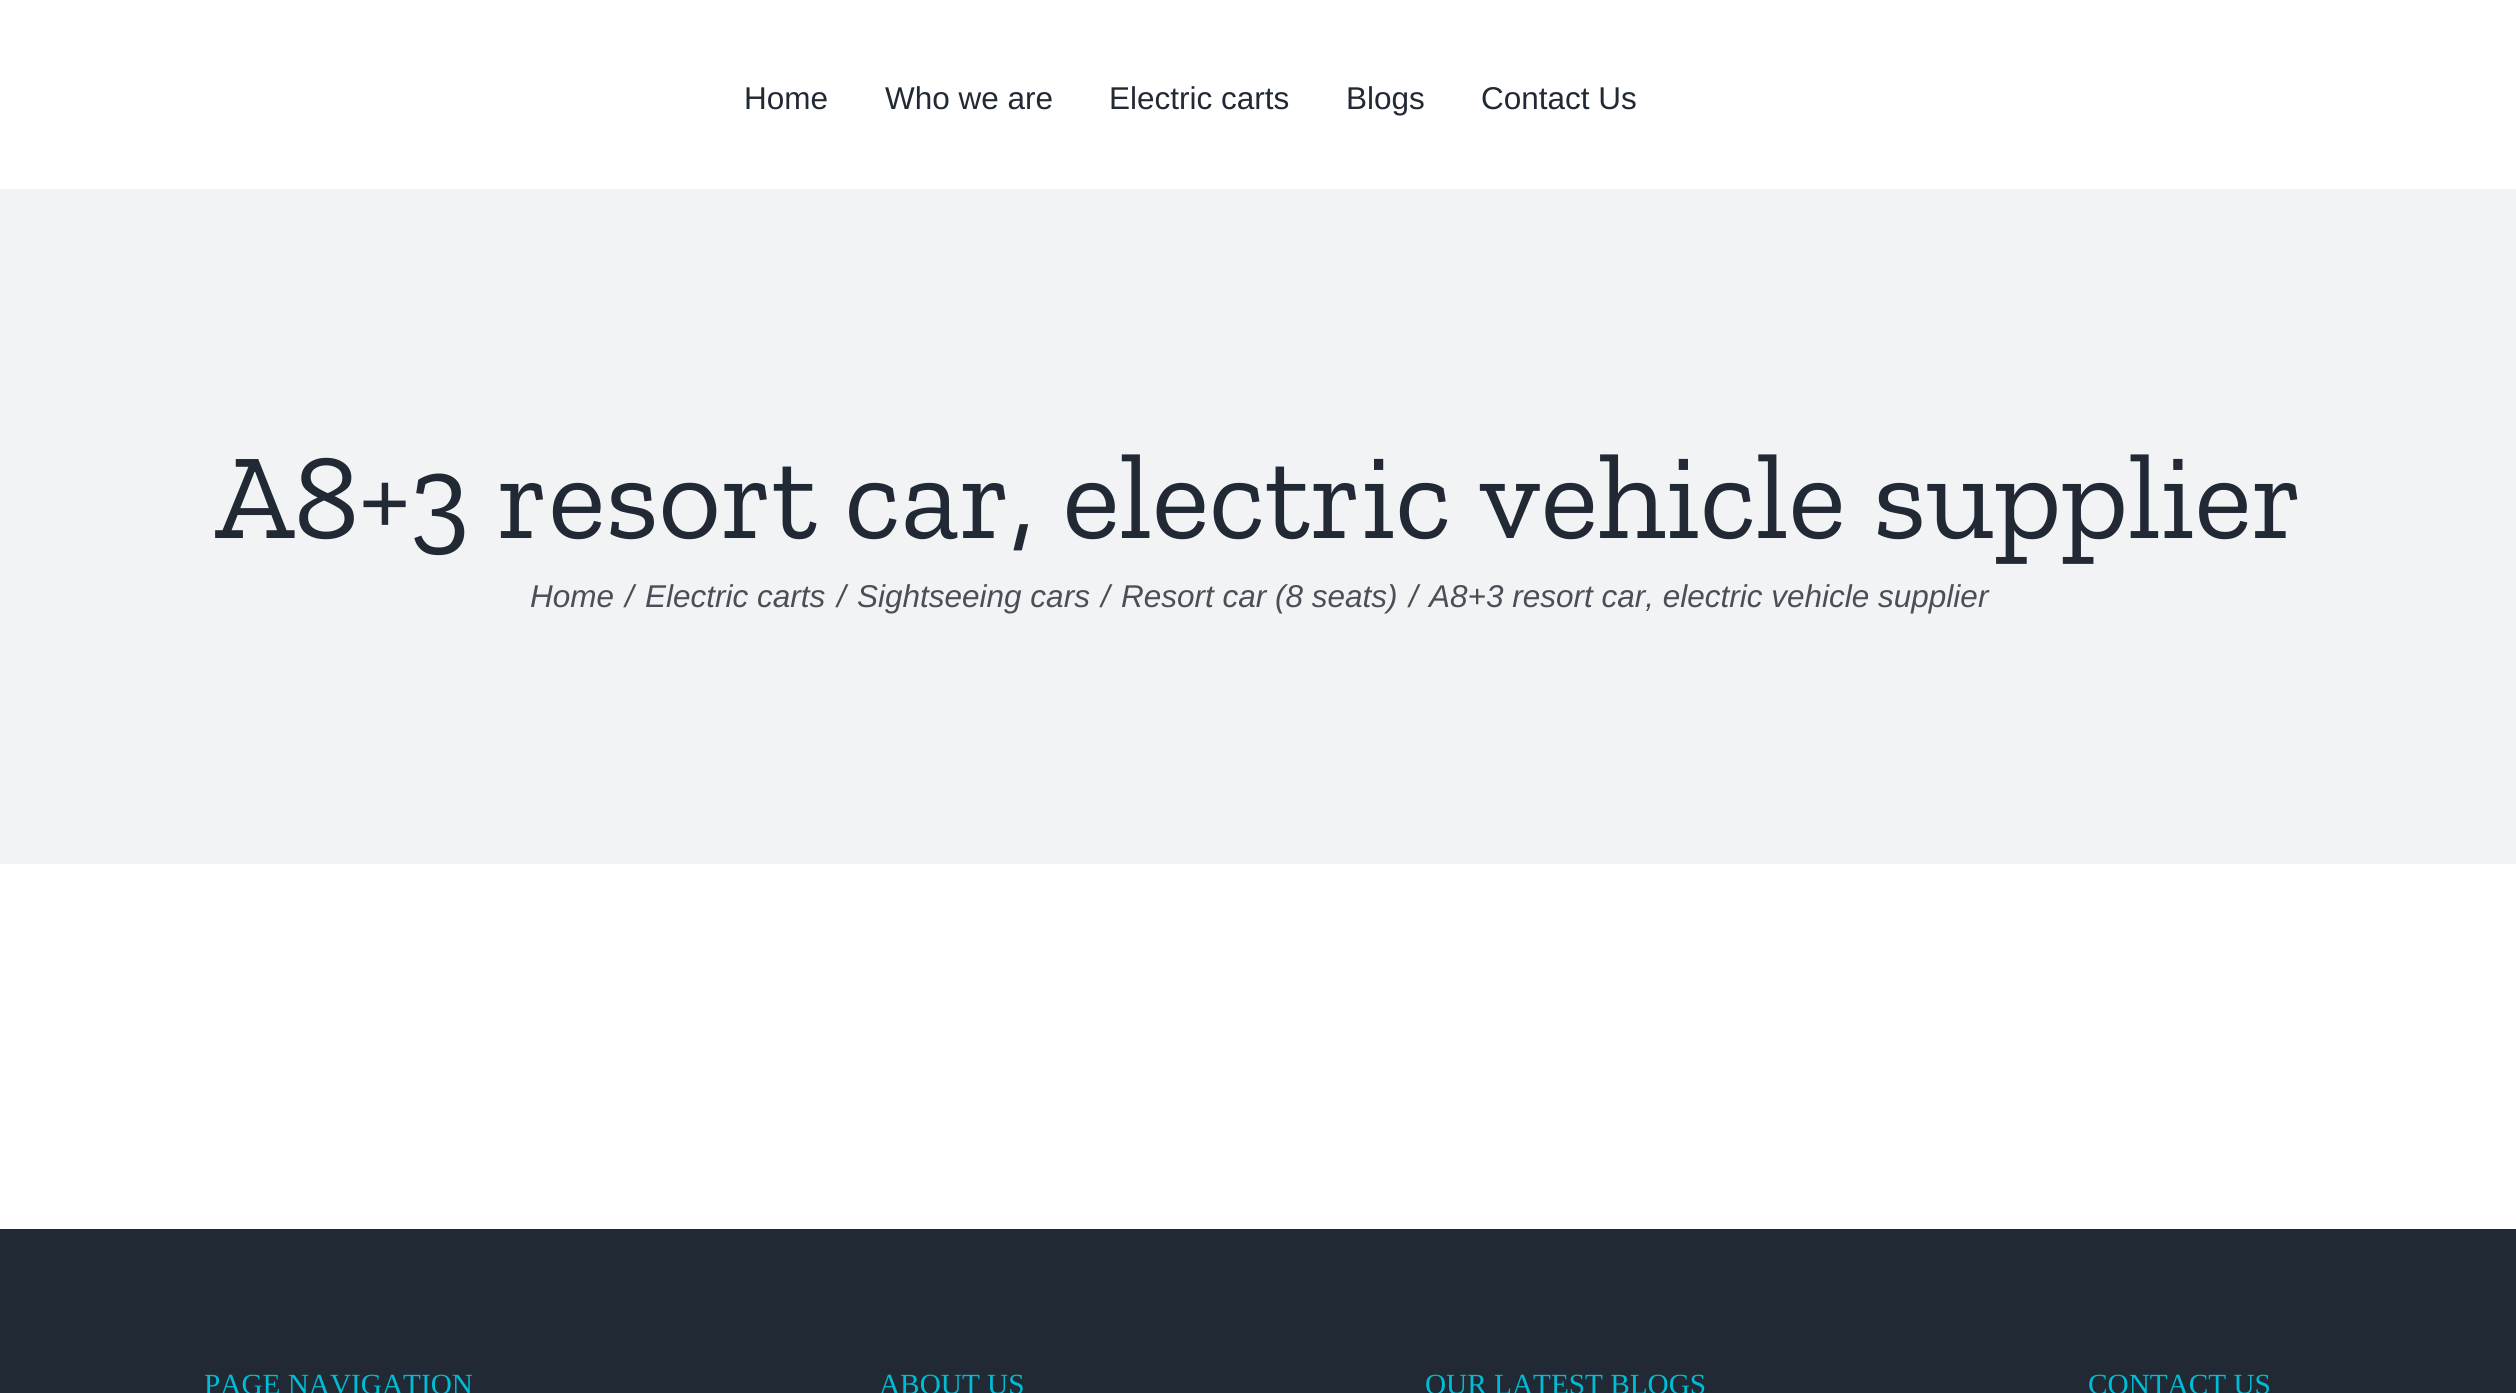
#include <cairo/cairo.h>
#include <math.h>
#include <stddef.h>

typedef struct { double x, y; const char *s; } line_t;
static cairo_t *cr;

static void rgb(unsigned color)
{
	cairo_set_source_rgb(cr, (color >> 16) / 255.0, (color >> 8 & 255) / 255.0, (color & 255) / 255.0);
}

int main(void) {
	cairo_surface_t *surface = cairo_image_surface_create(CAIRO_FORMAT_RGB24, 2516, 1393);
	cr = cairo_create(surface);
	cairo_font_options_t *options = cairo_font_options_create();
	cairo_font_options_set_hint_metrics(options, CAIRO_HINT_METRICS_OFF);
	cairo_font_options_set_hint_style(options, CAIRO_HINT_STYLE_NONE);
	cairo_set_font_options(cr, options);
	cairo_set_miter_limit(cr, 4);
	rgb(0xffffff);
	cairo_paint(cr);
	rgb(0xf2f3f5);
	cairo_rectangle(cr, 0, 189, 2516, 675);
	cairo_fill(cr);
	rgb(0x212934);
	cairo_rectangle(cr, 0, 1229, 2516, 164);
	cairo_fill(cr);
	cairo_select_font_face(cr, "Liberation Sans", CAIRO_FONT_SLANT_NORMAL, CAIRO_FONT_WEIGHT_NORMAL);
	cairo_set_font_size(cr, 31.5);
	{
		static const line_t items[] = {
			{744, 109, "Home"},
			{885, 109, "Who we are"},
			{1109, 109, "Electric carts"},
			{1346, 109, "Blogs"},
			{1481, 109, "Contact Us"},
		};
		for (size_t i = 0; i < sizeof items / sizeof *items; i++) {
			cairo_move_to(cr, items[i].x, items[i].y);
			cairo_show_text(cr, items[i].s);
		}
	}
	cairo_select_font_face(cr, "Zilla Slab", CAIRO_FONT_SLANT_NORMAL, CAIRO_FONT_WEIGHT_NORMAL);
	cairo_set_font_size(cr, 121.5);
	cairo_move_to(cr, 215, 538);
	cairo_show_text(cr, "A8+3 resort car, electric vehicle supplier");
	cairo_select_font_face(cr, "Liberation Sans", CAIRO_FONT_SLANT_ITALIC, CAIRO_FONT_WEIGHT_NORMAL);
	cairo_set_font_size(cr, 31.5);
	rgb(0x4a4e57);
	{
		static const line_t items[] = {
			{530, 607, "Home"},
			{625, 607, "/"},
			{645, 607, "Electric carts"},
			{837, 607, "/"},
			{857, 607, "Sightseeing cars"},
			{1101, 607, "/"},
			{1121, 607, "Resort car (8 seats)"},
			{1409, 607, "/"},
			{1429, 607, "A8+3 resort car, electric vehicle supplier"},
		};
		for (size_t i = 0; i < sizeof items / sizeof *items; i++) {
			cairo_move_to(cr, items[i].x, items[i].y);
			cairo_show_text(cr, items[i].s);
		}
	}
	cairo_select_font_face(cr, "Liberation Serif", CAIRO_FONT_SLANT_NORMAL, CAIRO_FONT_WEIGHT_NORMAL);
	cairo_set_font_size(cr, 29.25);
	rgb(0x00bcd4);
	{
		static const line_t items[] = {
			{204, 1394, "PAGE NAVIGATION"},
			{879, 1394, "ABOUT US"},
			{1425, 1394, "OUR LATEST BLOGS"},
			{2088, 1394, "CONTACT US"},
		};
		for (size_t i = 0; i < sizeof items / sizeof *items; i++) {
			cairo_move_to(cr, items[i].x, items[i].y);
			cairo_show_text(cr, items[i].s);
		}
	}
	cairo_surface_write_to_png(surface, "page.png");
	cairo_font_options_destroy(options);
	cairo_destroy(cr);
	cairo_surface_destroy(surface);
	return 0;
}
